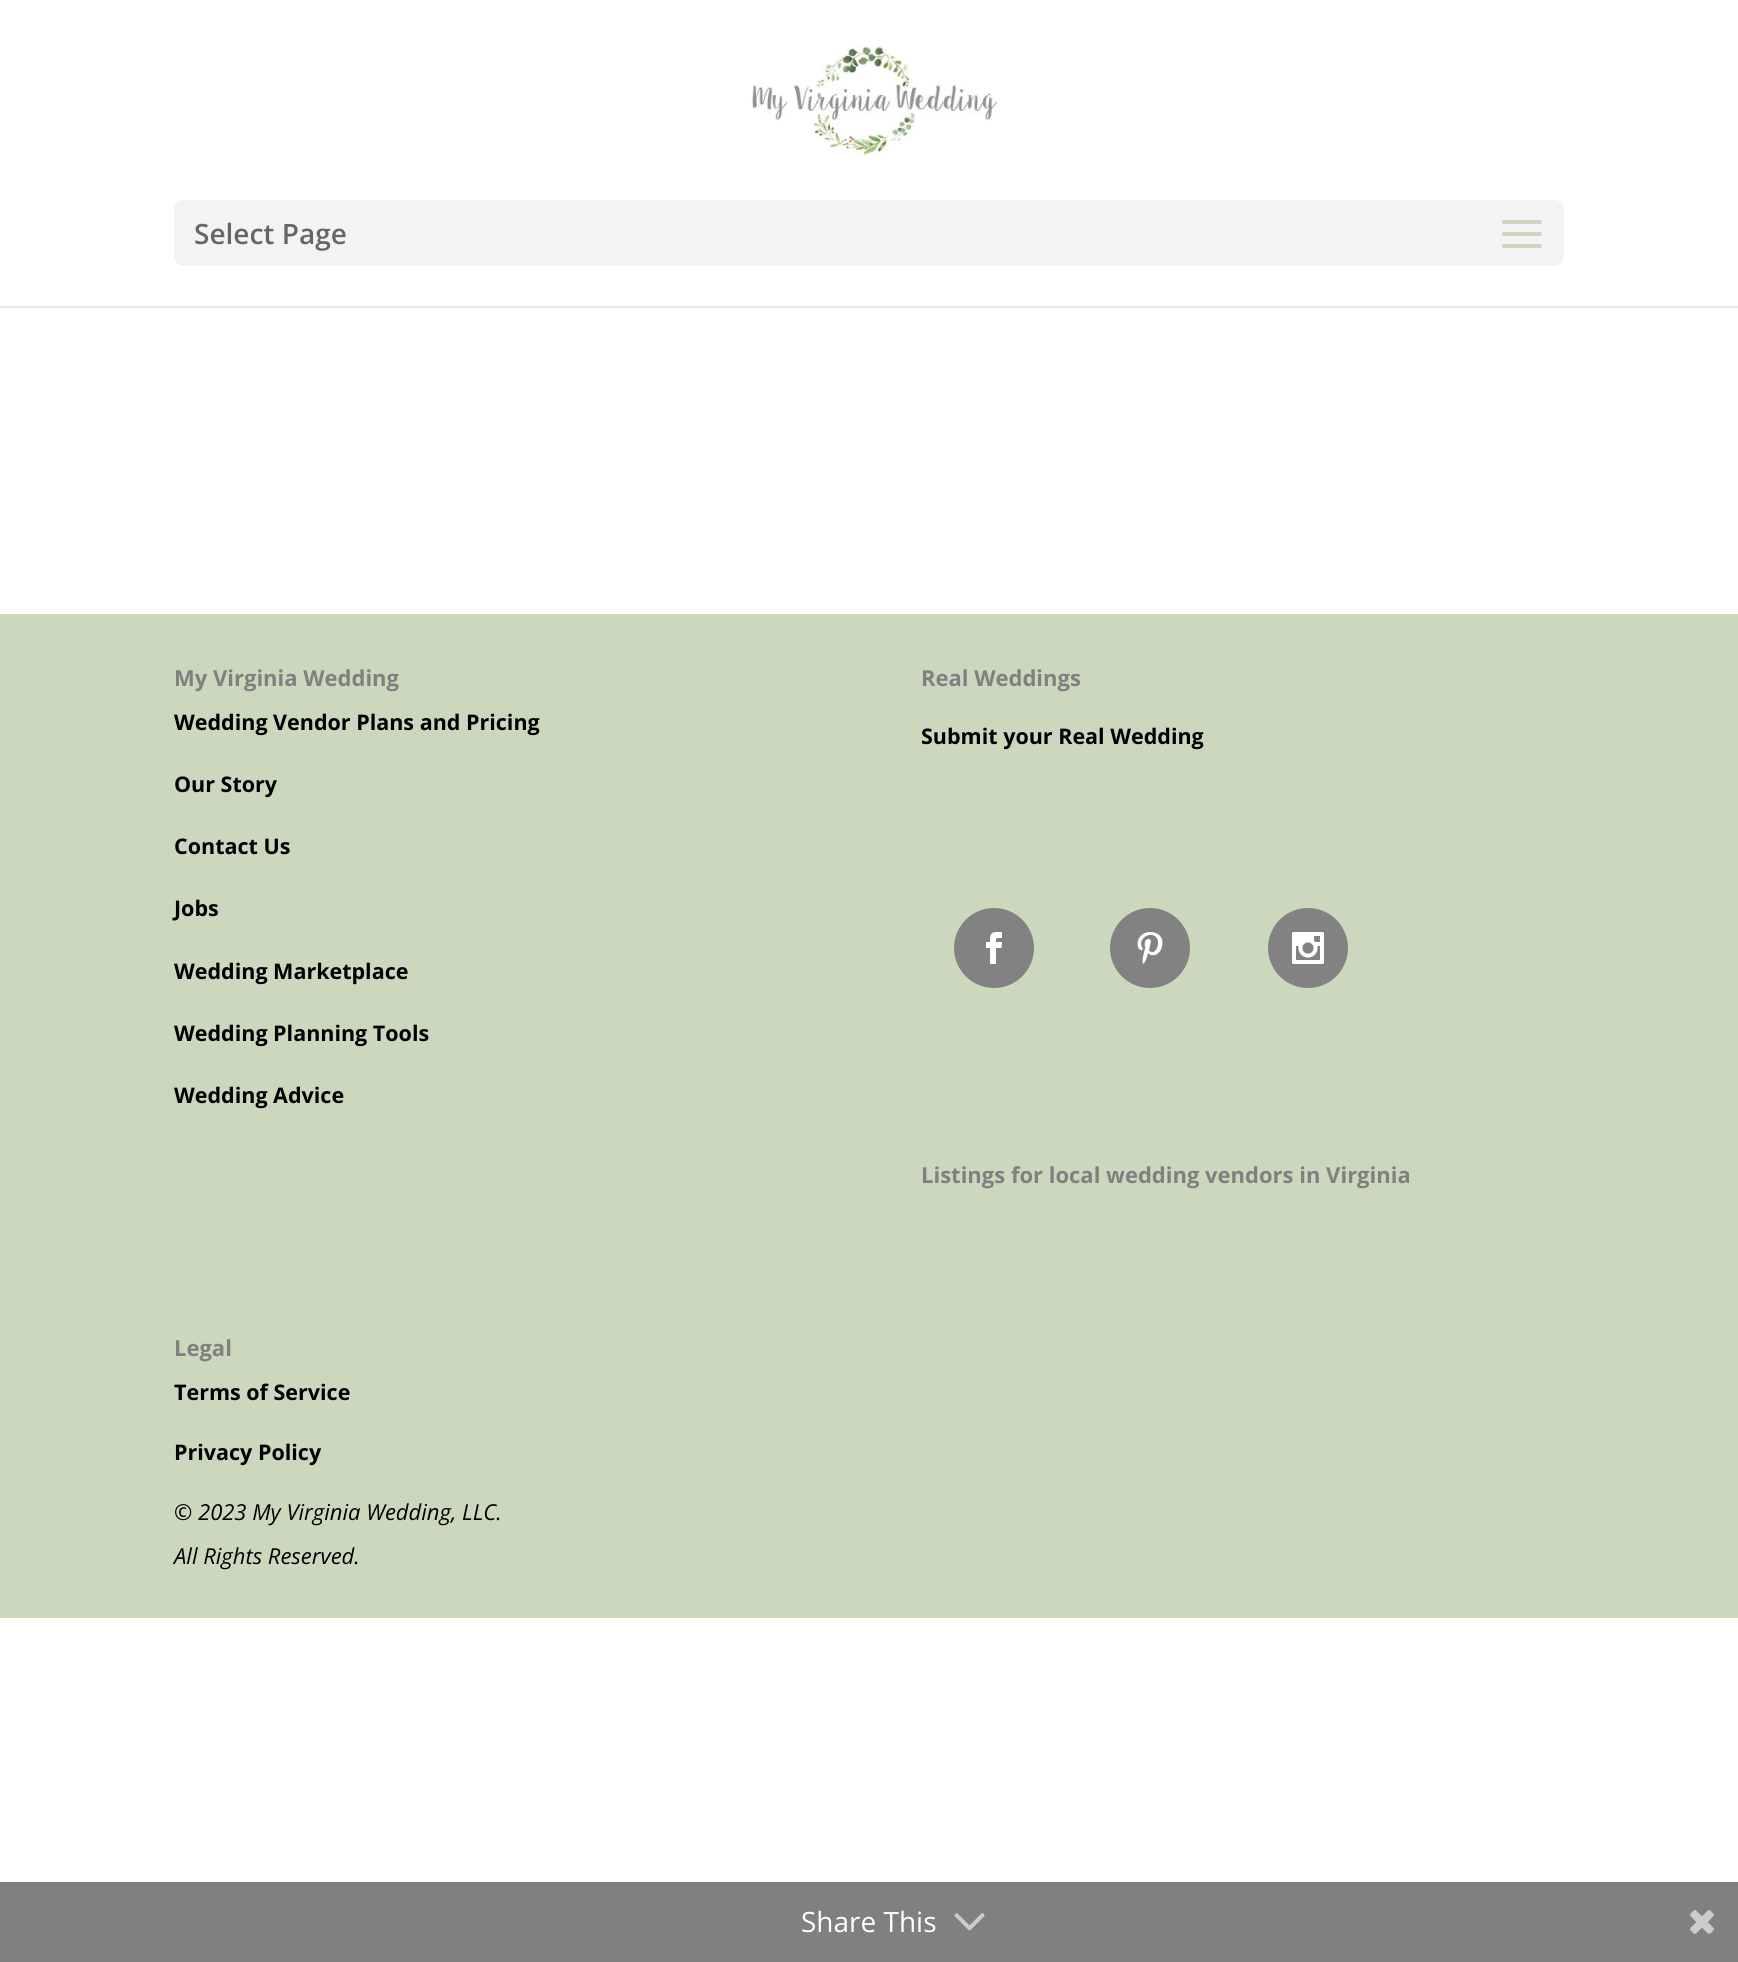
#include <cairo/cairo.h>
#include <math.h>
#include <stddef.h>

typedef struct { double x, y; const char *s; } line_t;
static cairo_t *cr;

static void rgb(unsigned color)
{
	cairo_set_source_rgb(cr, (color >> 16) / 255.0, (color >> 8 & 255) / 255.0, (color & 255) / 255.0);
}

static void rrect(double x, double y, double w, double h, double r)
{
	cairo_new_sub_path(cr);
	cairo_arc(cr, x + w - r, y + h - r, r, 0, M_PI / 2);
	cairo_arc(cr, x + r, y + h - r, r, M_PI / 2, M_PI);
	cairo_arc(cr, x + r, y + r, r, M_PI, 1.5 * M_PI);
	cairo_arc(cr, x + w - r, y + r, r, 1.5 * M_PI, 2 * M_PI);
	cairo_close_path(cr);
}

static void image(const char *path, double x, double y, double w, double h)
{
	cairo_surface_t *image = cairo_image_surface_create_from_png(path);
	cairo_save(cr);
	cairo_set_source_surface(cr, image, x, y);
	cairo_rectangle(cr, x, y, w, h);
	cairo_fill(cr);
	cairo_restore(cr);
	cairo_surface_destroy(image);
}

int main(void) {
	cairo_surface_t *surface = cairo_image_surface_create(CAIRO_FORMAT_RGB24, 1738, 1962);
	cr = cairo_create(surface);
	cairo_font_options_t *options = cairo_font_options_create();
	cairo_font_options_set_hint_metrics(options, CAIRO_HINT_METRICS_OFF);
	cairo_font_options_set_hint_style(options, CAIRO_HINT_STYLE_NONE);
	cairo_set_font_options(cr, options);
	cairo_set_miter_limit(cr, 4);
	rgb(0xffffff);
	cairo_paint(cr);
	rgb(0xe6e6e6);
	cairo_rectangle(cr, 0, 306, 1738, 2);
	cairo_fill(cr);
	image("img/1.png", 750, 46, 248, 110);
	rgb(0xf3f3f3);
	rrect(174, 200, 1390, 66, 10);
	cairo_fill(cr);
	image("img/2.png", 1502, 220, 40, 28);
	rgb(0xcbd8be);
	cairo_rectangle(cr, 0, 614, 1738, 1004);
	cairo_fill(cr);
	rgb(0x828282);
	cairo_arc(cr, 994, 948, 40, 0, 2 * M_PI);
	cairo_fill(cr);
	image("img/3.png", 986, 932, 17, 32);
	cairo_arc(cr, 1150, 948, 40, 0, 2 * M_PI);
	cairo_fill(cr);
	image("img/4.png", 1137, 932, 26, 32);
	cairo_arc(cr, 1308, 948, 40, 0, 2 * M_PI);
	cairo_fill(cr);
	image("img/5.png", 1292, 932, 32, 32);
	rgb(0x808080);
	cairo_rectangle(cr, 0, 1882, 1738, 80);
	cairo_fill(cr);
	image("img/6.png", 954, 1913, 31, 18);
	image("img/7.png", 1690, 1910, 24, 24);
	cairo_select_font_face(cr, "Open Sans SemiBold", CAIRO_FONT_SLANT_NORMAL, CAIRO_FONT_WEIGHT_NORMAL);
	cairo_set_font_size(cr, 28);
	rgb(0x666666);
	cairo_move_to(cr, 194, 244);
	cairo_show_text(cr, "Select Page");
	cairo_select_font_face(cr, "Open Sans", CAIRO_FONT_SLANT_NORMAL, CAIRO_FONT_WEIGHT_BOLD);
	cairo_set_font_size(cr, 22);
	rgb(0x808080);
	cairo_move_to(cr, 174, 686);
	cairo_show_text(cr, "My Virginia Wedding");
	cairo_set_font_size(cr, 21.5);
	rgb(0x000000);
	{
		static const line_t items[] = {
			{174, 730, "Wedding Vendor Plans and Pricing"},
			{174, 792, "Our Story"},
			{174, 854, "Contact Us"},
			{174, 916, "Jobs"},
			{174, 979, "Wedding Marketplace"},
			{174, 1041, "Wedding Planning Tools"},
			{174, 1103, "Wedding Advice"},
		};
		for (size_t i = 0; i < sizeof items / sizeof *items; i++) {
			cairo_move_to(cr, items[i].x, items[i].y);
			cairo_show_text(cr, items[i].s);
		}
	}
	cairo_set_font_size(cr, 22);
	rgb(0x808080);
	cairo_move_to(cr, 921, 686);
	cairo_show_text(cr, "Real Weddings");
	cairo_set_font_size(cr, 21.5);
	rgb(0x000000);
	cairo_move_to(cr, 921, 744);
	cairo_show_text(cr, "Submit your Real Wedding");
	cairo_set_font_size(cr, 22);
	rgb(0x808080);
	cairo_move_to(cr, 921, 1183);
	cairo_show_text(cr, "Listings for local wedding vendors in Virginia");
	cairo_move_to(cr, 174, 1356);
	cairo_show_text(cr, "Legal");
	cairo_set_font_size(cr, 21.5);
	rgb(0x000000);
	cairo_move_to(cr, 174, 1400);
	cairo_show_text(cr, "Terms of Service");
	cairo_move_to(cr, 174, 1460);
	cairo_show_text(cr, "Privacy Policy");
	cairo_select_font_face(cr, "Open Sans", CAIRO_FONT_SLANT_ITALIC, CAIRO_FONT_WEIGHT_NORMAL);
	cairo_set_font_size(cr, 22);
	cairo_move_to(cr, 174, 1520);
	cairo_show_text(cr, "© 2023 My Virginia Wedding, LLC.");
	cairo_move_to(cr, 174, 1564);
	cairo_show_text(cr, "All Rights Reserved.");
	cairo_select_font_face(cr, "Open Sans", CAIRO_FONT_SLANT_NORMAL, CAIRO_FONT_WEIGHT_NORMAL);
	cairo_set_font_size(cr, 28);
	rgb(0xffffff);
	cairo_move_to(cr, 801, 1932);
	cairo_show_text(cr, "Share This");
	cairo_surface_write_to_png(surface, "page.png");
	cairo_font_options_destroy(options);
	cairo_destroy(cr);
	cairo_surface_destroy(surface);
	return 0;
}
